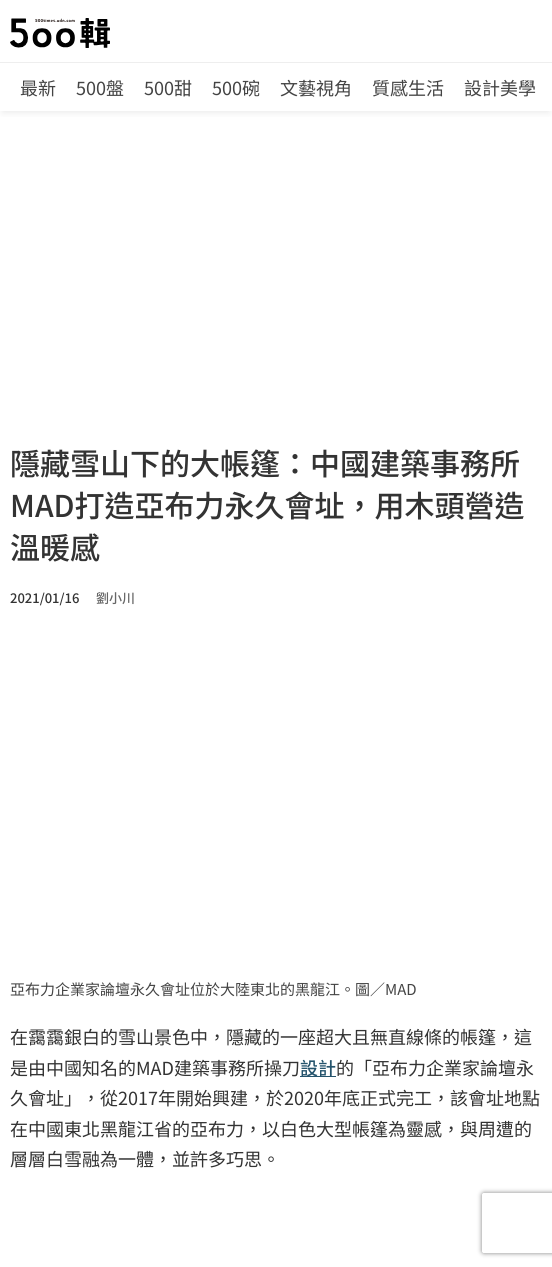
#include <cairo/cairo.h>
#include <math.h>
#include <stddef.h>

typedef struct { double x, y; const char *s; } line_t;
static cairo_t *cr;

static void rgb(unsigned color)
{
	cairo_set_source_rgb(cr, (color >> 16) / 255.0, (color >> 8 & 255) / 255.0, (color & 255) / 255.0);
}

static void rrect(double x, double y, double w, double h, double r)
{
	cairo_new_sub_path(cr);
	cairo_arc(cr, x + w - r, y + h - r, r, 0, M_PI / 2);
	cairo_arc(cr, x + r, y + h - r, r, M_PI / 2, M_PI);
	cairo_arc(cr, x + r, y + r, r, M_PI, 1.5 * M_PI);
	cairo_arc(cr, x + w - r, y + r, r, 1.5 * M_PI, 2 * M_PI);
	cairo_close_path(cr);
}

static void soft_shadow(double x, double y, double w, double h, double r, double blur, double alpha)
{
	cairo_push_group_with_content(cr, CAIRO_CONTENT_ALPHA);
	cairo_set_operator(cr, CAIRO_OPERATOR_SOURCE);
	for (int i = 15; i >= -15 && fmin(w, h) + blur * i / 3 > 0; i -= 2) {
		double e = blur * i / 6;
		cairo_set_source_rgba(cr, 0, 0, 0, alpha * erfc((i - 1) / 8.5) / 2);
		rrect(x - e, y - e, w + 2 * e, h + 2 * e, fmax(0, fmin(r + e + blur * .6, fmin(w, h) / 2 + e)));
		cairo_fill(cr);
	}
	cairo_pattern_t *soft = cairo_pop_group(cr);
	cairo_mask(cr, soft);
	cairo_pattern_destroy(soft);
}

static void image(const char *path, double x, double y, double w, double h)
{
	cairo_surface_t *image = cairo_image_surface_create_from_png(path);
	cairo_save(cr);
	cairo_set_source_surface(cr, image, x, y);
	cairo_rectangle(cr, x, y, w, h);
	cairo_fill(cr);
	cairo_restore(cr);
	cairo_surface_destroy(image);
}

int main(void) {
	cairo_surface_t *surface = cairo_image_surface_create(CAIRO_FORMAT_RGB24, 552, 1267);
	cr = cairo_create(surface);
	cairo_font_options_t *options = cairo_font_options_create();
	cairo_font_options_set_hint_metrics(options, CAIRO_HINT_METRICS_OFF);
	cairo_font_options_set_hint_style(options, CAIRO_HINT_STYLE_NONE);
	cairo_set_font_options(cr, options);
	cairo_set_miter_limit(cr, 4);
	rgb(0xffffff);
	cairo_paint(cr);
	rgb(0xeeeeee);
	cairo_rectangle(cr, 0, 62, 552, 1);
	cairo_fill(cr);
	image("img/1.png", 10, 18, 100, 30);
	cairo_save(cr);
	cairo_rectangle(cr, 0, 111, 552, 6);
	cairo_clip(cr);
	rgb(0x888888);
	soft_shadow(3, 70, 546, 42, 0, 4, 0.2);
	cairo_restore(cr);
	rgb(0x24536c);
	cairo_rectangle(cr, 300, 1076, 36, 1);
	cairo_fill(cr);
	cairo_save(cr);
	cairo_set_fill_rule(cr, CAIRO_FILL_RULE_EVEN_ODD);
	cairo_new_path(cr);
	cairo_move_to(cr, 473, 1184);
	cairo_line_to(cr, 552, 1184);
	cairo_line_to(cr, 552, 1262);
	cairo_line_to(cr, 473, 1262);
	cairo_close_path(cr);
	cairo_move_to(cr, 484, 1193);
	cairo_line_to(cr, 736, 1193);
	cairo_curve_to(cr, 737, 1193, 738, 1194, 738, 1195);
	cairo_line_to(cr, 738, 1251);
	cairo_curve_to(cr, 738, 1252, 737, 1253, 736, 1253);
	cairo_line_to(cr, 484, 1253);
	cairo_curve_to(cr, 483, 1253, 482, 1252, 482, 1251);
	cairo_line_to(cr, 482, 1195);
	cairo_curve_to(cr, 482, 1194, 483, 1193, 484, 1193);
	cairo_close_path(cr);
	cairo_clip(cr);
	rgb(0x808080);
	soft_shadow(482, 1193, 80, 60, 2, 2.5, 1);
	cairo_restore(cr);
	cairo_select_font_face(cr, "Noto Sans TC", CAIRO_FONT_SLANT_NORMAL, CAIRO_FONT_WEIGHT_NORMAL);
	cairo_set_font_size(cr, 18);
	rgb(0x444444);
	{
		static const line_t items[] = {
			{20, 95, "最新"},
			{76, 95, "500盤"},
			{144, 95, "500甜"},
			{212, 95, "500碗"},
			{280, 95, "文藝視角"},
			{372, 95, "質感生活"},
			{464, 95, "設計美學"},
		};
		for (size_t i = 0; i < sizeof items / sizeof *items; i++) {
			cairo_move_to(cr, items[i].x, items[i].y);
			cairo_show_text(cr, items[i].s);
		}
	}
	cairo_select_font_face(cr, "Noto Sans TC Medium", CAIRO_FONT_SLANT_NORMAL, CAIRO_FONT_WEIGHT_NORMAL);
	cairo_set_font_size(cr, 30);
	rgb(0x333333);
	{
		static const line_t items[] = {
			{10, 475, "隱藏雪山下的大帳篷：中國建築事務所"},
			{10, 517, "MAD打造亞布力永久會址，用木頭營造"},
			{10, 559, "溫暖感"},
		};
		for (size_t i = 0; i < sizeof items / sizeof *items; i++) {
			cairo_move_to(cr, items[i].x, items[i].y);
			cairo_show_text(cr, items[i].s);
		}
	}
	cairo_set_font_size(cr, 13);
	cairo_move_to(cr, 10, 603);
	cairo_show_text(cr, "2021/01/16");
	rgb(0x666666);
	cairo_move_to(cr, 96, 603);
	cairo_show_text(cr, "劉小川");
	cairo_select_font_face(cr, "Noto Sans TC", CAIRO_FONT_SLANT_NORMAL, CAIRO_FONT_WEIGHT_NORMAL);
	cairo_set_font_size(cr, 15);
	rgb(0x444444);
	cairo_move_to(cr, 10, 995);
	cairo_show_text(cr, "亞布力企業家論壇永久會址位於大陸東北的黑龍江。圖／MAD");
	cairo_set_font_size(cr, 18);
	rgb(0x333333);
	cairo_move_to(cr, 10, 1044);
	cairo_show_text(cr, "在靄靄銀白的雪山景色中，隱藏的一座超大且無直線條的帳篷，這");
	cairo_move_to(cr, 10, 1075);
	cairo_show_text(cr, "是由中國知名的MAD建築事務所操刀");
	cairo_select_font_face(cr, "Noto Sans TC Medium", CAIRO_FONT_SLANT_NORMAL, CAIRO_FONT_WEIGHT_NORMAL);
	rgb(0x24536c);
	cairo_move_to(cr, 300, 1075);
	cairo_show_text(cr, "設計");
	cairo_select_font_face(cr, "Noto Sans TC", CAIRO_FONT_SLANT_NORMAL, CAIRO_FONT_WEIGHT_NORMAL);
	rgb(0x333333);
	{
		static const line_t items[] = {
			{336, 1075, "的「亞布力企業家論壇永"},
			{10, 1105, "久會址」，從2017年開始興建，於2020年底正式完工，該會址地點"},
			{10, 1136, "在中國東北黑龍江省的亞布力，以白色大型帳篷為靈感，與周遭的"},
			{10, 1166, "層層白雪融為一體，並許多巧思。"},
		};
		for (size_t i = 0; i < sizeof items / sizeof *items; i++) {
			cairo_move_to(cr, items[i].x, items[i].y);
			cairo_show_text(cr, items[i].s);
		}
	}
	cairo_surface_write_to_png(surface, "page.png");
	cairo_font_options_destroy(options);
	cairo_destroy(cr);
	cairo_surface_destroy(surface);
	return 0;
}
